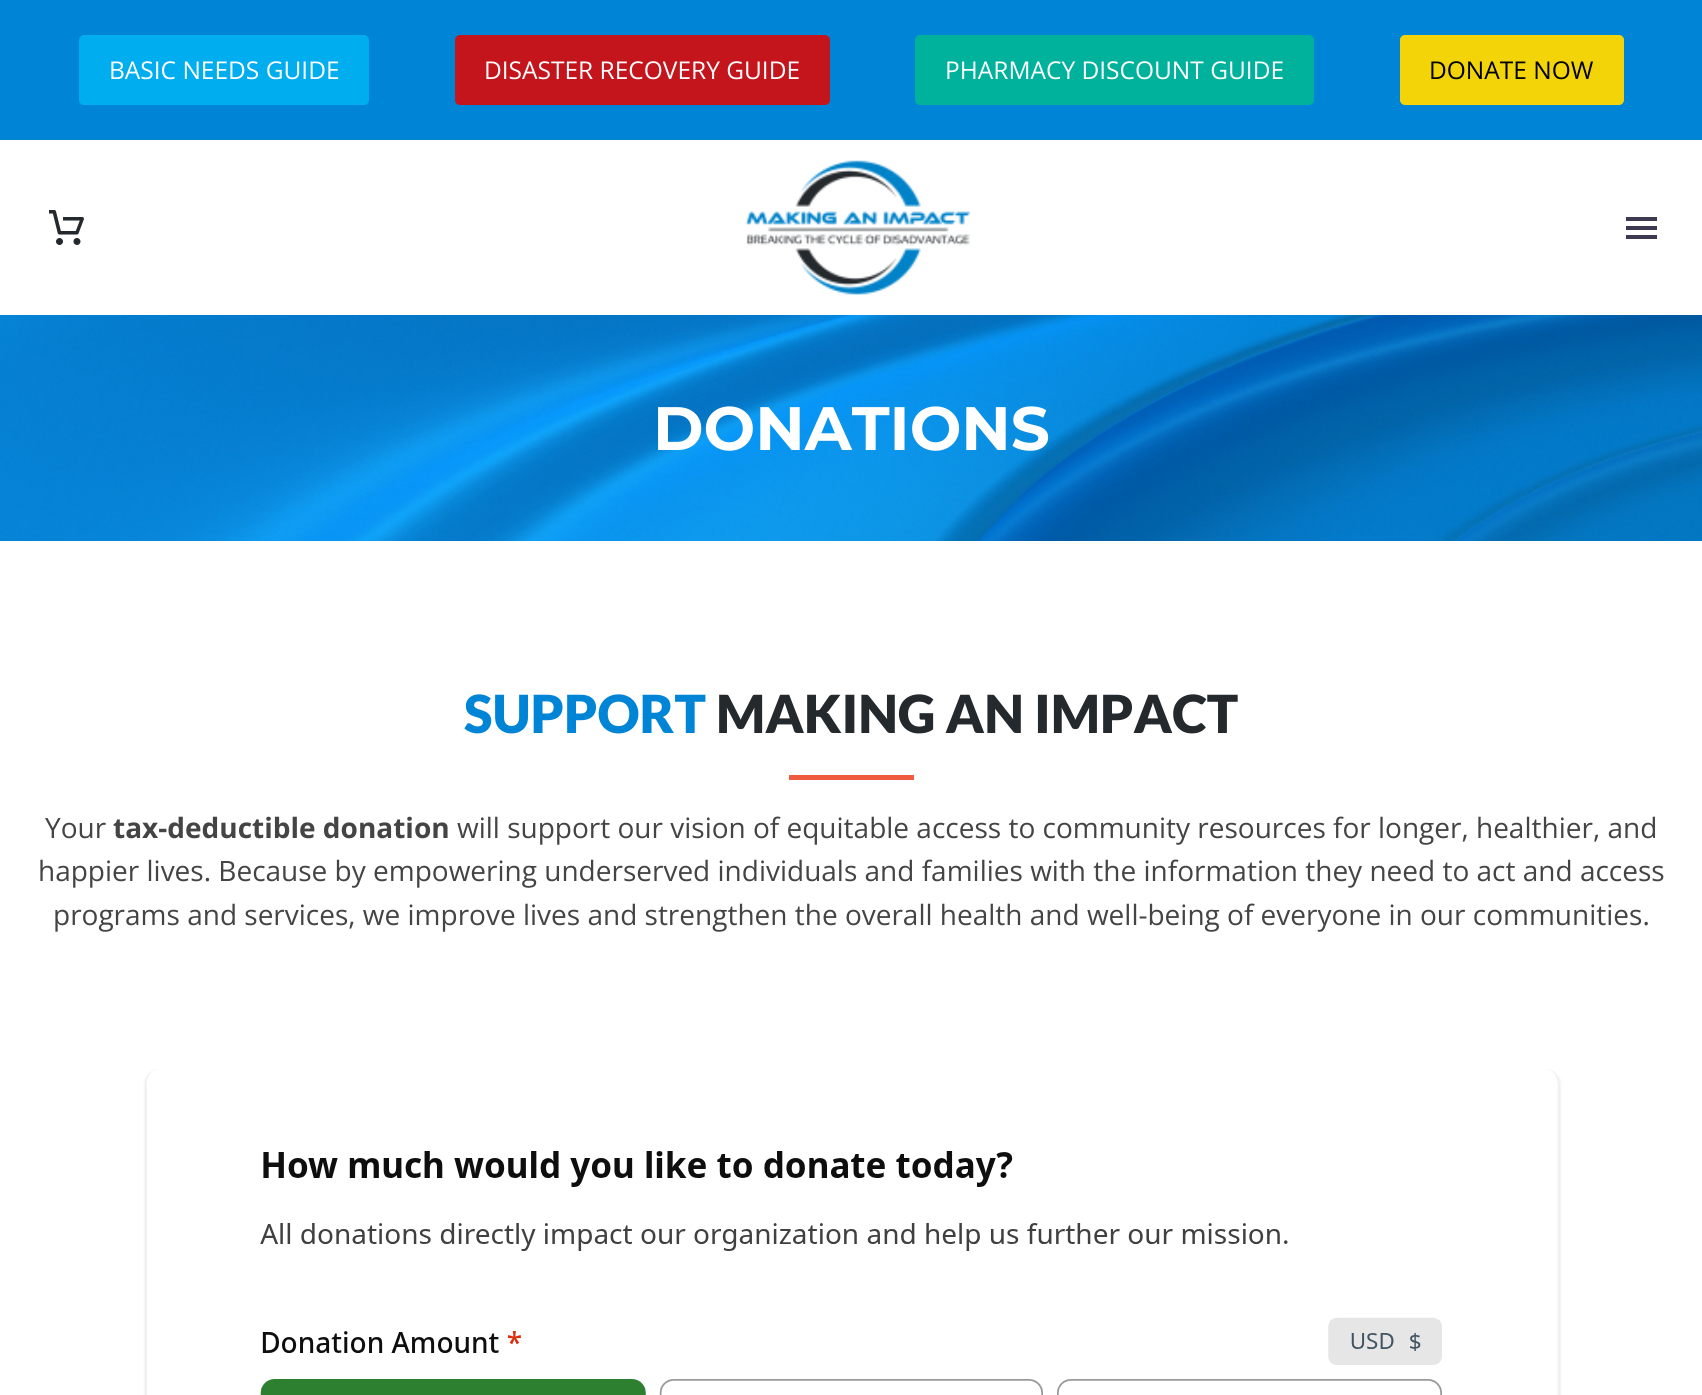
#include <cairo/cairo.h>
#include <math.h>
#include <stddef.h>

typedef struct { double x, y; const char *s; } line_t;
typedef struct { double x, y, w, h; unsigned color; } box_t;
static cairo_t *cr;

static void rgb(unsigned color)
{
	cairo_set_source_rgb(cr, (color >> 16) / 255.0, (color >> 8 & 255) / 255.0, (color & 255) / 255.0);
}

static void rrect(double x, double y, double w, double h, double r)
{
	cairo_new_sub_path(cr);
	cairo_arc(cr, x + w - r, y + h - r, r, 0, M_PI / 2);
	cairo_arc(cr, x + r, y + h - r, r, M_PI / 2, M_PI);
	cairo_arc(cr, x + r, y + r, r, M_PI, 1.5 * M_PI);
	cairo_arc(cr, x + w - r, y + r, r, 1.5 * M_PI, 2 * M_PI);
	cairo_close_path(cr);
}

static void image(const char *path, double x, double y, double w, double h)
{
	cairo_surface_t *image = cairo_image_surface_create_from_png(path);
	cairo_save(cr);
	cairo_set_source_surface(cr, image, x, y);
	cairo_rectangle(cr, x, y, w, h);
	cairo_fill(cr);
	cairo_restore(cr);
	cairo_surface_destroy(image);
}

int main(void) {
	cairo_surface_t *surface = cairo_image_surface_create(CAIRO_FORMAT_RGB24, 1702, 1395);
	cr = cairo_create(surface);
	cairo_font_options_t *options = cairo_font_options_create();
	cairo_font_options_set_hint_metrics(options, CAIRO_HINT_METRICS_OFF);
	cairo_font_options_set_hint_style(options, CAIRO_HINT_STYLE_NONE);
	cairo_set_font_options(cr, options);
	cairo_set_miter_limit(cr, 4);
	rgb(0xffffff);
	cairo_paint(cr);
	rgb(0x0084d5);
	cairo_rectangle(cr, 0, 0, 1702, 140);
	cairo_fill(cr);
	rgb(0x00adef);
	rrect(79, 35, 290, 70, 5);
	cairo_fill(cr);
	rgb(0xc4151c);
	rrect(455, 35, 375, 70, 5);
	cairo_fill(cr);
	rgb(0x00b19c);
	rrect(915, 35, 399, 70, 5);
	cairo_fill(cr);
	rgb(0xf3d409);
	rrect(1400, 35, 224, 70, 5);
	cairo_fill(cr);
	image("img/1.png", 49, 210, 35, 35);
	image("img/2.png", 745, 160, 225, 135);
	{
		static const box_t items[] = {
			{1626, 217, 31, 4, 0x3c3950},
			{1626, 226, 31, 4, 0x3c3950},
			{1626, 235, 31, 4, 0x3c3950},
		};
		for (size_t i = 0; i < sizeof items / sizeof *items; i++) {
			rgb(items[i].color);
			cairo_rectangle(cr, items[i].x, items[i].y, items[i].w, items[i].h);
			cairo_fill(cr);
		}
	}
	image("img/3.png", 0, 315, 1702, 226);
	rgb(0xf05a3f);
	cairo_rectangle(cr, 789, 775, 125, 5);
	cairo_fill(cr);
	image("img/4.png", 143, 1069, 1419, 326);
	cairo_select_font_face(cr, "Open Sans", CAIRO_FONT_SLANT_NORMAL, CAIRO_FONT_WEIGHT_NORMAL);
	cairo_set_font_size(cr, 24.5);
	rgb(0xffffff);
	{
		static const line_t items[] = {
			{109, 79, "BASIC NEEDS GUIDE"},
			{484, 79, "DISASTER RECOVERY GUIDE"},
			{945, 79, "PHARMACY DISCOUNT GUIDE"},
		};
		for (size_t i = 0; i < sizeof items / sizeof *items; i++) {
			cairo_move_to(cr, items[i].x, items[i].y);
			cairo_show_text(cr, items[i].s);
		}
	}
	rgb(0x000000);
	cairo_move_to(cr, 1429, 79);
	cairo_show_text(cr, "DONATE NOW");
	cairo_select_font_face(cr, "Montserrat", CAIRO_FONT_SLANT_NORMAL, CAIRO_FONT_WEIGHT_BOLD);
	cairo_set_font_size(cr, 61.25);
	rgb(0xffffff);
	cairo_move_to(cr, 653, 450);
	cairo_show_text(cr, "DONATIONS");
	cairo_select_font_face(cr, "Lato Black", CAIRO_FONT_SLANT_NORMAL, CAIRO_FONT_WEIGHT_NORMAL);
	cairo_set_font_size(cr, 52.5);
	rgb(0x0084d5);
	cairo_move_to(cr, 464, 733);
	cairo_show_text(cr, "SUPPORT");
	rgb(0x24292e);
	cairo_move_to(cr, 716, 733);
	cairo_show_text(cr, "MAKING AN IMPACT");
	cairo_select_font_face(cr, "Open Sans", CAIRO_FONT_SLANT_NORMAL, CAIRO_FONT_WEIGHT_NORMAL);
	cairo_set_font_size(cr, 28);
	rgb(0x444444);
	cairo_move_to(cr, 45, 838);
	cairo_show_text(cr, "Your");
	cairo_select_font_face(cr, "Open Sans", CAIRO_FONT_SLANT_NORMAL, CAIRO_FONT_WEIGHT_BOLD);
	cairo_move_to(cr, 113, 838);
	cairo_show_text(cr, "tax-deductible donation");
	cairo_select_font_face(cr, "Open Sans", CAIRO_FONT_SLANT_NORMAL, CAIRO_FONT_WEIGHT_NORMAL);
	{
		static const line_t items[] = {
			{457, 838, "will support our vision of equitable access to community resources for longer, healthier, and"},
			{38, 881, "happier lives. Because by empowering underserved individuals and families with the information they need to act and access"},
			{53, 925, "programs and services, we improve lives and strengthen the overall health and well-being of everyone in our communities."},
		};
		for (size_t i = 0; i < sizeof items / sizeof *items; i++) {
			cairo_move_to(cr, items[i].x, items[i].y);
			cairo_show_text(cr, items[i].s);
		}
	}
	cairo_surface_write_to_png(surface, "page.png");
	cairo_font_options_destroy(options);
	cairo_destroy(cr);
	cairo_surface_destroy(surface);
	return 0;
}
